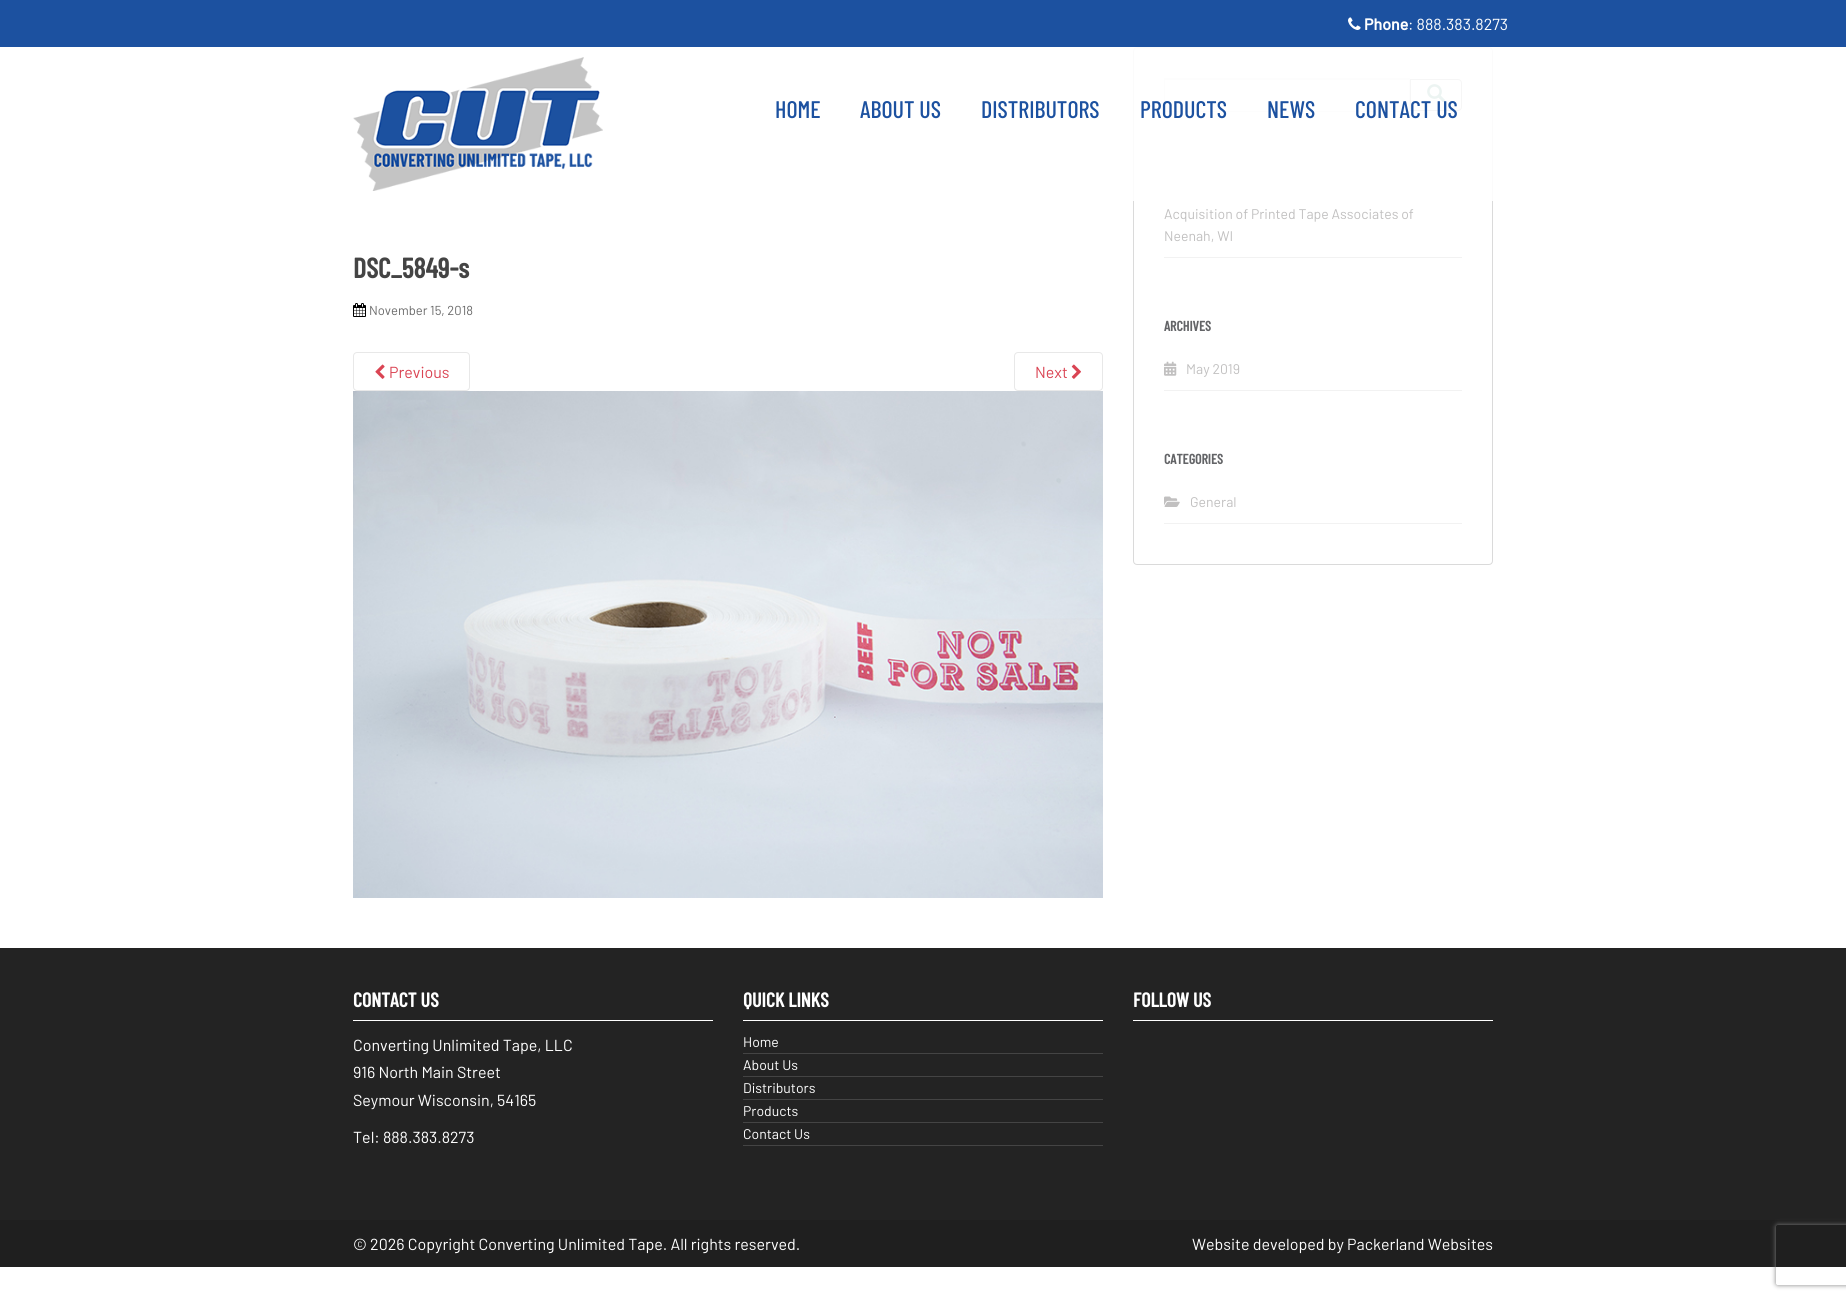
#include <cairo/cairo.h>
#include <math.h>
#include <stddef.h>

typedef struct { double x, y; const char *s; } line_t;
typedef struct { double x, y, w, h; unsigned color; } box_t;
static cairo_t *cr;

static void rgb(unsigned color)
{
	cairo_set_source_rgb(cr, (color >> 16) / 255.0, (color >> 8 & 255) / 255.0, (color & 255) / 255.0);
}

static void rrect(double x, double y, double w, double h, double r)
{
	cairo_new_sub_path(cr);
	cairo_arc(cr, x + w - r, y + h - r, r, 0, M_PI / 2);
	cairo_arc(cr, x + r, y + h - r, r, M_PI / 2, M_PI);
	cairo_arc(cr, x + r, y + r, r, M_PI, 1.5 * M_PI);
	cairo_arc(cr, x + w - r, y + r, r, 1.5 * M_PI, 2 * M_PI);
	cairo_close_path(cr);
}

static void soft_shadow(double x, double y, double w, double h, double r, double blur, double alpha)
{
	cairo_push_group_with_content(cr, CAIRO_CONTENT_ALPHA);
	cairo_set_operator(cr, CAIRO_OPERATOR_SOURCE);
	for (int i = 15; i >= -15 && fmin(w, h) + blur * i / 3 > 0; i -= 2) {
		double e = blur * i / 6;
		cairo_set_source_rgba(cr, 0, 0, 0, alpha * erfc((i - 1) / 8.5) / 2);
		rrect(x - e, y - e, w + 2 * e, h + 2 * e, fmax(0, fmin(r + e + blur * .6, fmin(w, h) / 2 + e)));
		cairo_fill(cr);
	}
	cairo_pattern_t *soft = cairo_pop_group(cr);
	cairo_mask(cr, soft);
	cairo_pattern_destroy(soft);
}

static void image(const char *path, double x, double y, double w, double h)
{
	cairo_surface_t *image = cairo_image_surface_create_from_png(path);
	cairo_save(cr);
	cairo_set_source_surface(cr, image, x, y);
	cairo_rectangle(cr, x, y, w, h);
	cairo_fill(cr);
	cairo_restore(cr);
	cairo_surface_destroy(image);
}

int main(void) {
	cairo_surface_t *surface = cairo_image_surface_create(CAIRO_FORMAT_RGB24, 1846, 1299);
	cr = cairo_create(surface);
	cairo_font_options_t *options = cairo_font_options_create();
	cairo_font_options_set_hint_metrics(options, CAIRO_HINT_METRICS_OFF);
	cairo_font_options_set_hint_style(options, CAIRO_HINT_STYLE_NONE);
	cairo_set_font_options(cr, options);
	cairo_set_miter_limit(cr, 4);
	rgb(0xffffff);
	cairo_paint(cr);
	rgb(0x1c51a0);
	cairo_rectangle(cr, 0, 0, 1846, 47);
	cairo_fill(cr);
	image("img/1.png", 1348, 17, 13, 13);
	rgb(0xf2f2f2);
	cairo_new_path(cr);
	cairo_move_to(cr, 1137, 49);
	cairo_line_to(cr, 1489, 49);
	cairo_curve_to(cr, 1491, 49, 1492, 50, 1492, 52);
	cairo_curve_to(cr, 1492, 50, 1491, 48, 1489, 48);
	cairo_line_to(cr, 1137, 48);
	cairo_line_to(cr, 1135, 49);
	cairo_line_to(cr, 1134, 52);
	cairo_curve_to(cr, 1134, 50, 1135, 49, 1137, 49);
	cairo_close_path(cr);
	cairo_fill(cr);
	rrect(1133.5, 47.5, 359, 517, 3.5);
	rgb(0xdadada);
	cairo_set_line_width(cr, 1);
	cairo_stroke(cr);
	rgb(0xececec);
	cairo_rectangle(cr, 1165, 79, 244, 1);
	cairo_fill(cr);
	cairo_rectangle(cr, 1164.5, 78.5, 245, 33);
	rgb(0xe8e8e8);
	cairo_stroke(cr);
	cairo_new_path(cr);
	cairo_move_to(cr, 1410.5, 79.5);
	cairo_line_to(cr, 1458, 79.5);
	cairo_curve_to(cr, 1460, 79.5, 1461.5, 81, 1461.5, 83);
	cairo_line_to(cr, 1461.5, 107);
	cairo_curve_to(cr, 1461.5, 109, 1460, 110.5, 1458, 110.5);
	cairo_line_to(cr, 1410.5, 110.5);
	cairo_close_path(cr);
	rgb(0xa8a8a8);
	cairo_stroke(cr);
	image("img/7.png", 1427, 84, 19, 19);
	cairo_set_source_rgba(cr, 1, 1, 1, 0.9);
	cairo_rectangle(cr, 1133, 47, 360, 154);
	cairo_fill(cr);
	image("img/2.png", 353, 57, 250, 134);
	image("img/3.png", 353, 303, 13, 14);
	rrect(353.5, 352.5, 116, 38, 3.5);
	rgb(0xe8e8e8);
	cairo_stroke(cr);
	image("img/4.png", 375, 364, 10, 15);
	rrect(1014.5, 352.5, 88, 38, 3.5);
	cairo_stroke(cr);
	image("img/5.png", 1071, 364, 10, 15);
	image("img/6.png", 353, 391, 750, 507);
	rgb(0xf2f2f2);
	cairo_rectangle(cr, 1164, 257, 298, 1);
	cairo_fill(cr);
	cairo_rectangle(cr, 1164, 390, 298, 1);
	cairo_fill(cr);
	image("img/8.png", 1164, 361, 13, 15);
	cairo_rectangle(cr, 1164, 523, 298, 1);
	cairo_fill(cr);
	image("img/9.png", 1164, 496, 16, 11);
	{
		static const box_t items[] = {
			{0, 948, 1846, 272, 0x232323},
			{353, 1020, 360, 1, 0xffffff},
			{743, 1020, 360, 1, 0xffffff},
			{743, 1053, 360, 1, 0x444444},
			{743, 1076, 360, 1, 0x444444},
			{743, 1099, 360, 1, 0x444444},
			{743, 1122, 360, 1, 0x444444},
			{743, 1145, 360, 1, 0x444444},
			{1133, 1020, 360, 1, 0xffffff},
			{0, 1220, 1846, 47, 0x1f1f1f},
		};
		for (size_t i = 0; i < sizeof items / sizeof *items; i++) {
			rgb(items[i].color);
			cairo_rectangle(cr, items[i].x, items[i].y, items[i].w, items[i].h);
			cairo_fill(cr);
		}
	}
	cairo_save(cr);
	cairo_set_fill_rule(cr, CAIRO_FILL_RULE_EVEN_ODD);
	cairo_new_path(cr);
	cairo_move_to(cr, 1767, 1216);
	cairo_line_to(cr, 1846, 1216);
	cairo_line_to(cr, 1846, 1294);
	cairo_line_to(cr, 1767, 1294);
	cairo_close_path(cr);
	cairo_move_to(cr, 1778, 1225);
	cairo_line_to(cr, 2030, 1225);
	cairo_curve_to(cr, 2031, 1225, 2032, 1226, 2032, 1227);
	cairo_line_to(cr, 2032, 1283);
	cairo_curve_to(cr, 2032, 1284, 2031, 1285, 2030, 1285);
	cairo_line_to(cr, 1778, 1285);
	cairo_curve_to(cr, 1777, 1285, 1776, 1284, 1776, 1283);
	cairo_line_to(cr, 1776, 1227);
	cairo_curve_to(cr, 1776, 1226, 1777, 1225, 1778, 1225);
	cairo_close_path(cr);
	cairo_clip(cr);
	rgb(0x808080);
	soft_shadow(1776, 1225, 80, 60, 2, 2.5, 1);
	cairo_restore(cr);
	cairo_select_font_face(cr, "Barlow", CAIRO_FONT_SLANT_NORMAL, CAIRO_FONT_WEIGHT_BOLD);
	cairo_set_font_size(cr, 16);
	rgb(0xffffff);
	cairo_move_to(cr, 1364, 30);
	cairo_show_text(cr, "Phone");
	cairo_select_font_face(cr, "Barlow", CAIRO_FONT_SLANT_NORMAL, CAIRO_FONT_WEIGHT_NORMAL);
	cairo_move_to(cr, 1408, 30);
	cairo_show_text(cr, ": 888.383.8273");
	cairo_select_font_face(cr, "Barlow Condensed Medium", CAIRO_FONT_SLANT_NORMAL, CAIRO_FONT_WEIGHT_NORMAL);
	cairo_set_font_size(cr, 24);
	rgb(0x1c51a0);
	{
		static const line_t items[] = {
			{775, 118, "HOME"},
			{860, 118, "ABOUT US"},
			{981, 118, "DISTRIBUTORS"},
			{1140, 118, "PRODUCTS"},
			{1267, 118, "NEWS"},
			{1355, 118, "CONTACT US"},
		};
		for (size_t i = 0; i < sizeof items / sizeof *items; i++) {
			cairo_move_to(cr, items[i].x, items[i].y);
			cairo_show_text(cr, items[i].s);
		}
	}
	cairo_select_font_face(cr, "Barlow Condensed", CAIRO_FONT_SLANT_NORMAL, CAIRO_FONT_WEIGHT_BOLD);
	cairo_set_font_size(cr, 28);
	rgb(0x444444);
	cairo_move_to(cr, 353, 278);
	cairo_show_text(cr, "DSC_5849-s");
	cairo_select_font_face(cr, "Barlow", CAIRO_FONT_SLANT_NORMAL, CAIRO_FONT_WEIGHT_NORMAL);
	cairo_set_font_size(cr, 13);
	rgb(0x6b6b6b);
	cairo_move_to(cr, 369, 315);
	cairo_show_text(cr, "November 15, 2018");
	cairo_set_font_size(cr, 16);
	rgb(0xda4453);
	cairo_move_to(cr, 389, 378);
	cairo_show_text(cr, "Previous");
	cairo_move_to(cr, 1035, 378);
	cairo_show_text(cr, "Next");
	cairo_set_font_size(cr, 14);
	rgb(0xc1c0c0);
	cairo_move_to(cr, 1164, 219);
	cairo_show_text(cr, "Acquisition of Printed Tape Associates of");
	cairo_move_to(cr, 1164, 241);
	cairo_show_text(cr, "Neenah, WI");
	cairo_select_font_face(cr, "Barlow Condensed", CAIRO_FONT_SLANT_NORMAL, CAIRO_FONT_WEIGHT_BOLD);
	rgb(0x636467);
	cairo_move_to(cr, 1164, 331);
	cairo_show_text(cr, "ARCHIVES");
	cairo_select_font_face(cr, "Barlow", CAIRO_FONT_SLANT_NORMAL, CAIRO_FONT_WEIGHT_NORMAL);
	rgb(0xc1c0c0);
	cairo_move_to(cr, 1186, 374);
	cairo_show_text(cr, "May 2019");
	cairo_select_font_face(cr, "Barlow Condensed", CAIRO_FONT_SLANT_NORMAL, CAIRO_FONT_WEIGHT_BOLD);
	rgb(0x636467);
	cairo_move_to(cr, 1164, 464);
	cairo_show_text(cr, "CATEGORIES");
	cairo_select_font_face(cr, "Barlow", CAIRO_FONT_SLANT_NORMAL, CAIRO_FONT_WEIGHT_NORMAL);
	rgb(0xc1c0c0);
	cairo_move_to(cr, 1190, 507);
	cairo_show_text(cr, "General");
	cairo_select_font_face(cr, "Barlow Condensed", CAIRO_FONT_SLANT_NORMAL, CAIRO_FONT_WEIGHT_BOLD);
	cairo_set_font_size(cr, 20);
	rgb(0xffffff);
	cairo_move_to(cr, 353, 1007);
	cairo_show_text(cr, "CONTACT US");
	cairo_select_font_face(cr, "Barlow", CAIRO_FONT_SLANT_NORMAL, CAIRO_FONT_WEIGHT_NORMAL);
	cairo_set_font_size(cr, 16);
	{
		static const line_t items[] = {
			{353, 1051, "Converting Unlimited Tape, LLC"},
			{353, 1078, "916 North Main Street"},
			{353, 1106, "Seymour Wisconsin, 54165"},
			{353, 1143, "Tel: 888.383.8273"},
		};
		for (size_t i = 0; i < sizeof items / sizeof *items; i++) {
			cairo_move_to(cr, items[i].x, items[i].y);
			cairo_show_text(cr, items[i].s);
		}
	}
	cairo_select_font_face(cr, "Barlow Condensed", CAIRO_FONT_SLANT_NORMAL, CAIRO_FONT_WEIGHT_BOLD);
	cairo_set_font_size(cr, 20);
	cairo_move_to(cr, 743, 1007);
	cairo_show_text(cr, "QUICK LINKS");
	cairo_select_font_face(cr, "Barlow", CAIRO_FONT_SLANT_NORMAL, CAIRO_FONT_WEIGHT_NORMAL);
	cairo_set_font_size(cr, 14);
	{
		static const line_t items[] = {
			{743, 1047, "Home"},
			{743, 1070, "About Us"},
			{743, 1093, "Distributors"},
			{743, 1116, "Products"},
			{743, 1139, "Contact Us"},
		};
		for (size_t i = 0; i < sizeof items / sizeof *items; i++) {
			cairo_move_to(cr, items[i].x, items[i].y);
			cairo_show_text(cr, items[i].s);
		}
	}
	cairo_select_font_face(cr, "Barlow Condensed", CAIRO_FONT_SLANT_NORMAL, CAIRO_FONT_WEIGHT_BOLD);
	cairo_set_font_size(cr, 20);
	cairo_move_to(cr, 1133, 1007);
	cairo_show_text(cr, "FOLLOW US");
	cairo_select_font_face(cr, "Barlow", CAIRO_FONT_SLANT_NORMAL, CAIRO_FONT_WEIGHT_NORMAL);
	cairo_set_font_size(cr, 16);
	cairo_move_to(cr, 353, 1250);
	cairo_show_text(cr, "© 2026 Copyright Converting Unlimited Tape. All rights reserved.");
	cairo_move_to(cr, 1192, 1250);
	cairo_show_text(cr, "Website developed by Packerland Websites");
	cairo_surface_write_to_png(surface, "page.png");
	cairo_font_options_destroy(options);
	cairo_destroy(cr);
	cairo_surface_destroy(surface);
	return 0;
}
